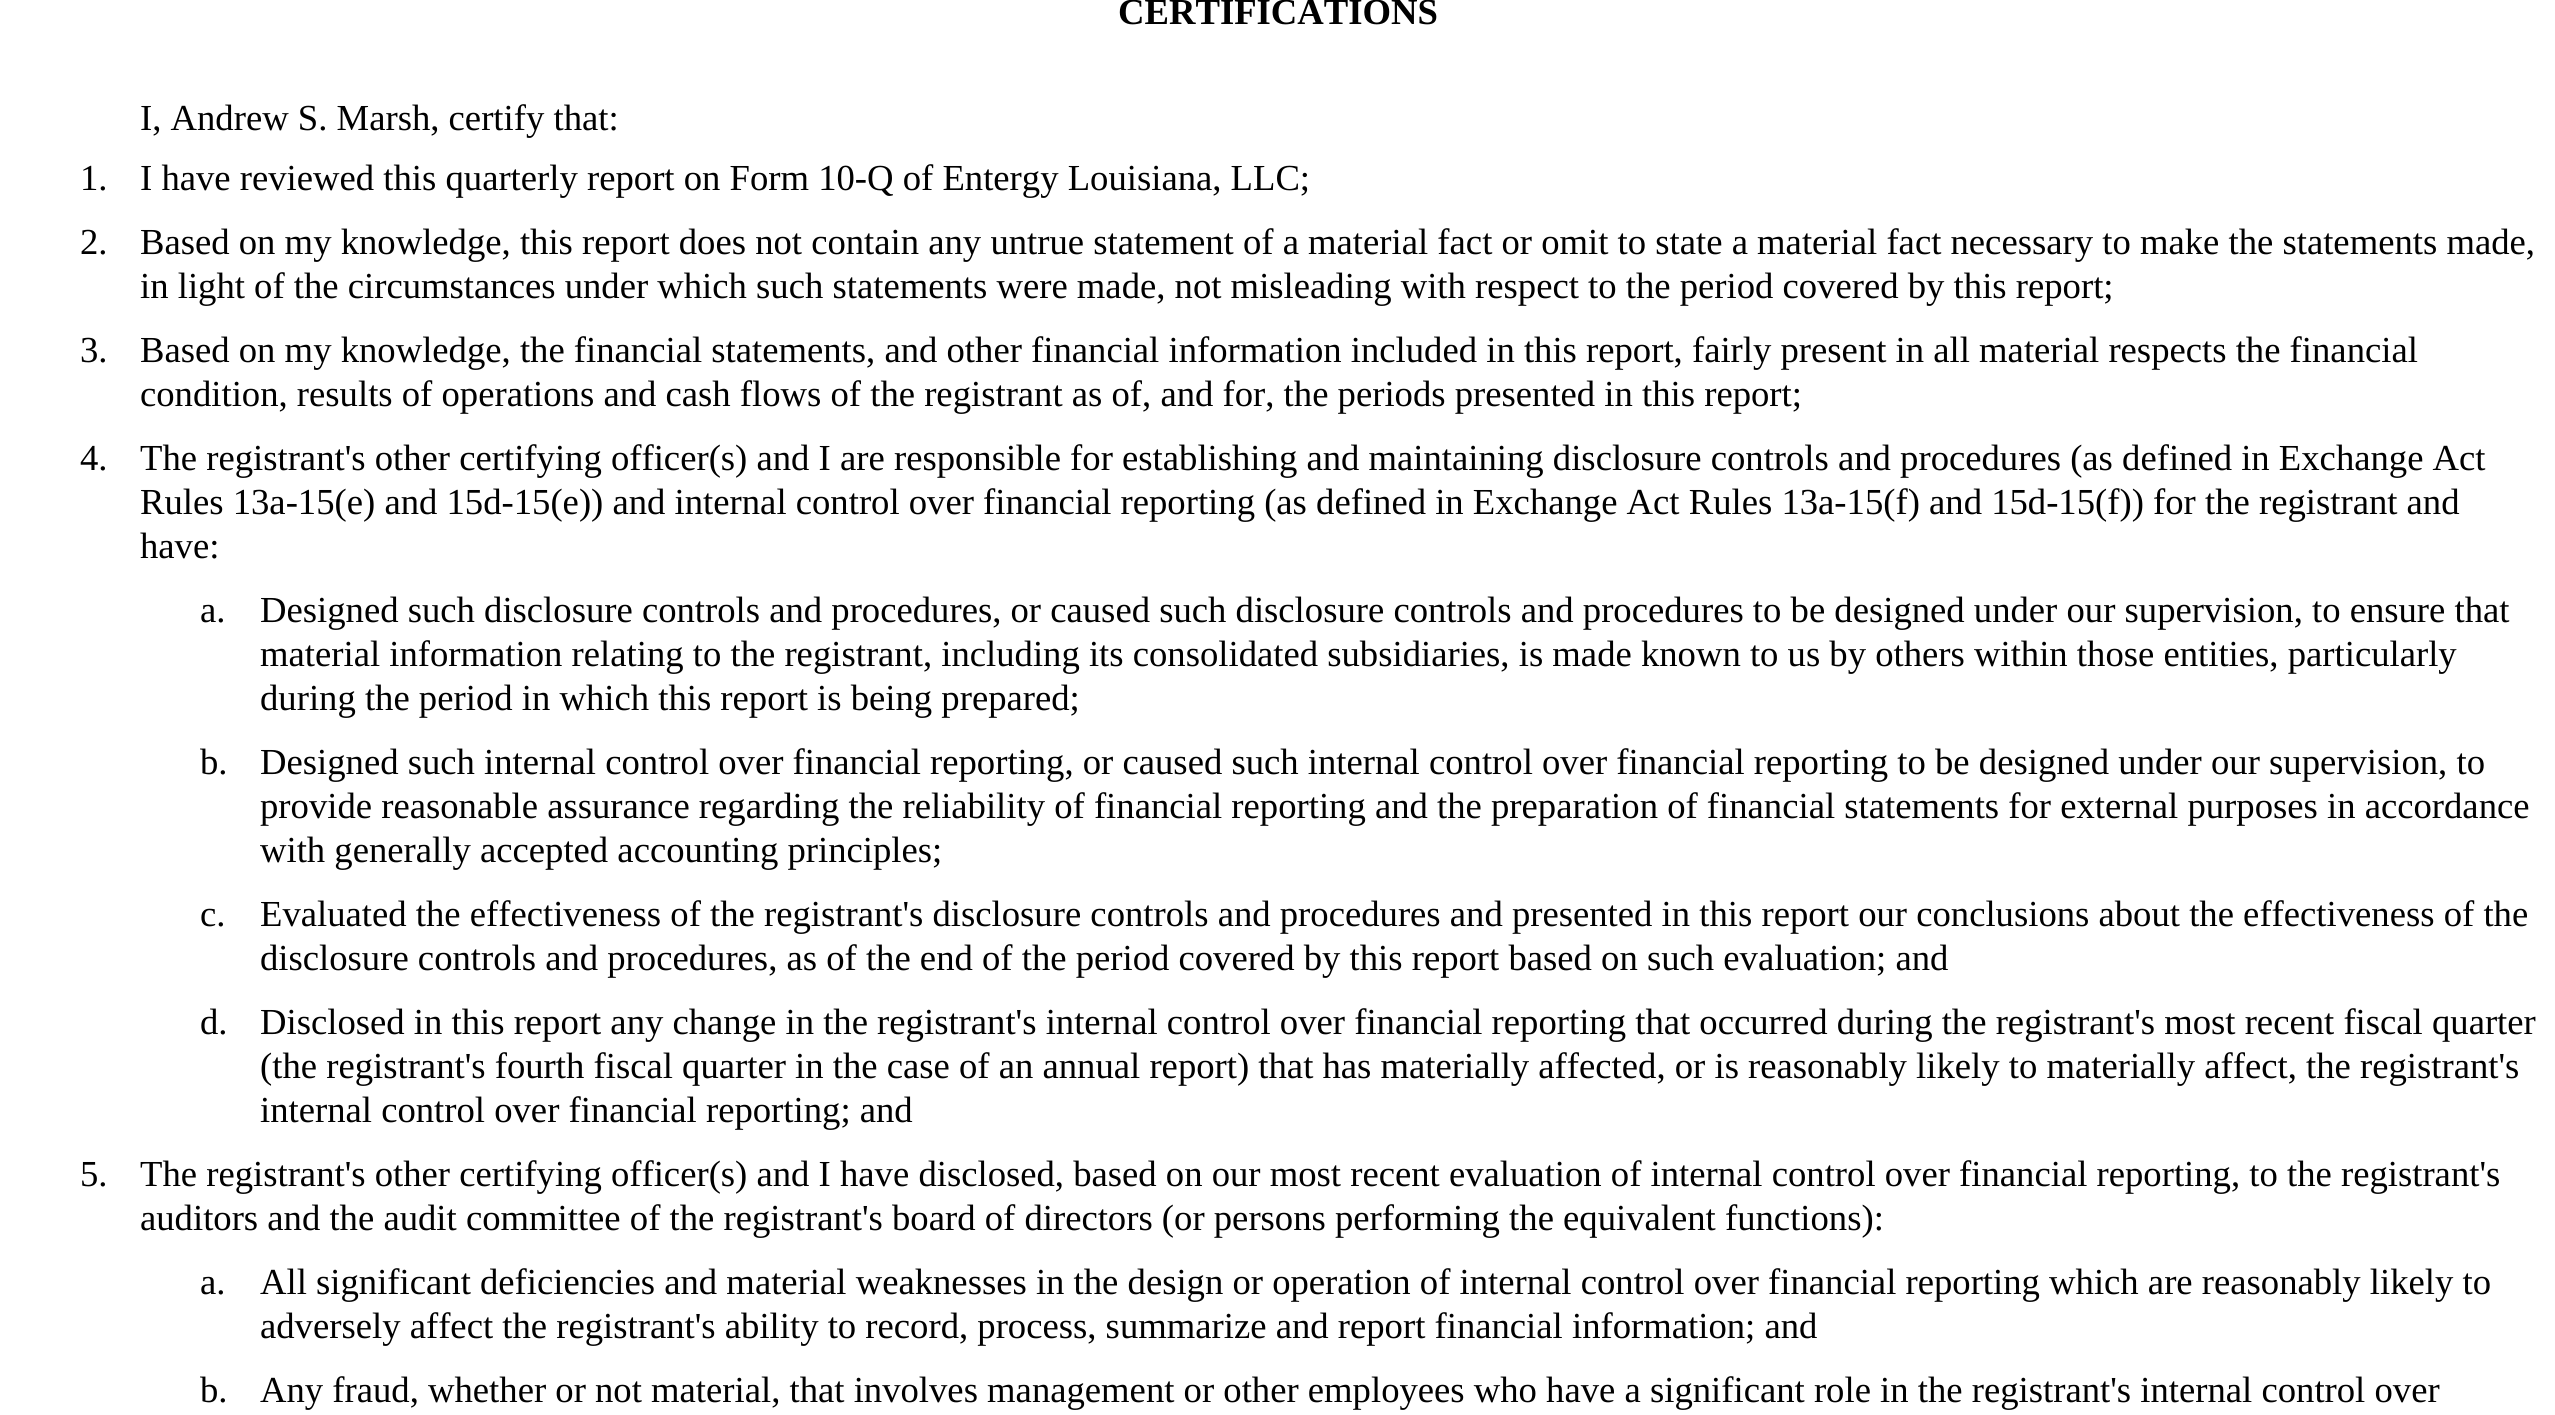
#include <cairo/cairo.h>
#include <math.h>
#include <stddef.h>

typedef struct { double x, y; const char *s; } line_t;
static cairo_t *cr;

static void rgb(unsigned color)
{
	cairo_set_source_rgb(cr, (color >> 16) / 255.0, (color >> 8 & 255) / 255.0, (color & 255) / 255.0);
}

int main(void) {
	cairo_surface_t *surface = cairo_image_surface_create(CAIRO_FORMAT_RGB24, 2555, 1415);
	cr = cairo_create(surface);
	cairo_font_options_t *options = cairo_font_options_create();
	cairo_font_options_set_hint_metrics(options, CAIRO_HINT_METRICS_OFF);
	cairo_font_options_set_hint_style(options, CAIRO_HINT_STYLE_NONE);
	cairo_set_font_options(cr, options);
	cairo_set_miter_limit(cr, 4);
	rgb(0xffffff);
	cairo_paint(cr);
	cairo_select_font_face(cr, "Liberation Serif", CAIRO_FONT_SLANT_NORMAL, CAIRO_FONT_WEIGHT_BOLD);
	cairo_set_font_size(cr, 36.67);
	rgb(0x000000);
	cairo_move_to(cr, 1118, 24);
	cairo_show_text(cr, "CERTIFICATIONS");
	cairo_select_font_face(cr, "Liberation Serif", CAIRO_FONT_SLANT_NORMAL, CAIRO_FONT_WEIGHT_NORMAL);
	{
		static const line_t items[] = {
			{140, 130, "I, Andrew S. Marsh, certify that:"},
			{80, 190, "1."},
			{140, 190, "I have reviewed this quarterly report on Form 10-Q of Entergy Louisiana, LLC;"},
			{80, 254, "2."},
			{140, 254, "Based on my knowledge, this report does not contain any untrue statement of a material fact or omit to state a material fact necessary to make the statements made,"},
			{140, 298, "in light of the circumstances under which such statements were made, not misleading with respect to the period covered by this report;"},
			{80, 362, "3."},
			{140, 362, "Based on my knowledge, the financial statements, and other financial information included in this report, fairly present in all material respects the financial"},
			{140, 406, "condition, results of operations and cash flows of the registrant as of, and for, the periods presented in this report;"},
			{80, 470, "4."},
			{140, 470, "The registrant's other certifying officer(s) and I are responsible for establishing and maintaining disclosure controls and procedures (as defined in Exchange Act"},
			{140, 514, "Rules 13a-15(e) and 15d-15(e)) and internal control over financial reporting (as defined in Exchange Act Rules 13a-15(f) and 15d-15(f)) for the registrant and"},
			{140, 558, "have:"},
			{200, 622, "a."},
			{260, 622, "Designed such disclosure controls and procedures, or caused such disclosure controls and procedures to be designed under our supervision, to ensure that"},
			{260, 666, "material information relating to the registrant, including its consolidated subsidiaries, is made known to us by others within those entities, particularly"},
			{260, 710, "during the period in which this report is being prepared;"},
			{200, 774, "b."},
			{260, 774, "Designed such internal control over financial reporting, or caused such internal control over financial reporting to be designed under our supervision, to"},
			{260, 818, "provide reasonable assurance regarding the reliability of financial reporting and the preparation of financial statements for external purposes in accordance"},
			{260, 862, "with generally accepted accounting principles;"},
			{200, 926, "c."},
			{260, 926, "Evaluated the effectiveness of the registrant's disclosure controls and procedures and presented in this report our conclusions about the effectiveness of the"},
			{260, 970, "disclosure controls and procedures, as of the end of the period covered by this report based on such evaluation; and"},
			{200, 1034, "d."},
			{260, 1034, "Disclosed in this report any change in the registrant's internal control over financial reporting that occurred during the registrant's most recent fiscal quarter"},
			{260, 1078, "(the registrant's fourth fiscal quarter in the case of an annual report) that has materially affected, or is reasonably likely to materially affect, the registrant's"},
			{260, 1122, "internal control over financial reporting; and"},
			{80, 1186, "5."},
			{140, 1186, "The registrant's other certifying officer(s) and I have disclosed, based on our most recent evaluation of internal control over financial reporting, to the registrant's"},
			{140, 1230, "auditors and the audit committee of the registrant's board of directors (or persons performing the equivalent functions):"},
			{200, 1294, "a."},
			{260, 1294, "All significant deficiencies and material weaknesses in the design or operation of internal control over financial reporting which are reasonably likely to"},
			{260, 1338, "adversely affect the registrant's ability to record, process, summarize and report financial information; and"},
			{200, 1402, "b."},
			{260, 1402, "Any fraud, whether or not material, that involves management or other employees who have a significant role in the registrant's internal control over"},
		};
		for (size_t i = 0; i < sizeof items / sizeof *items; i++) {
			cairo_move_to(cr, items[i].x, items[i].y);
			cairo_show_text(cr, items[i].s);
		}
	}
	cairo_surface_write_to_png(surface, "page.png");
	cairo_font_options_destroy(options);
	cairo_destroy(cr);
	cairo_surface_destroy(surface);
	return 0;
}
